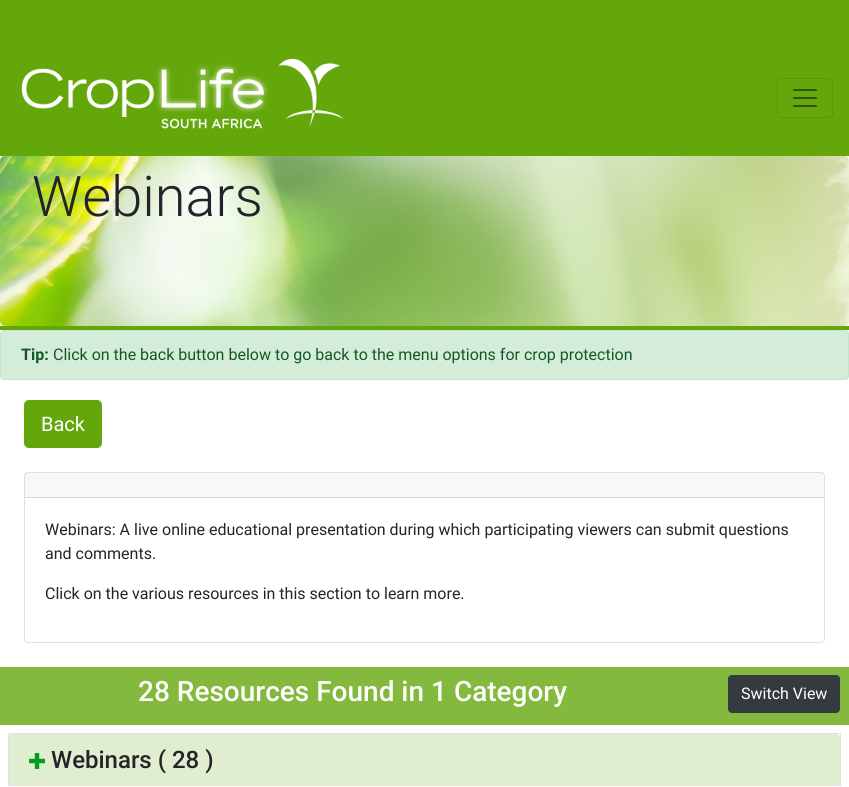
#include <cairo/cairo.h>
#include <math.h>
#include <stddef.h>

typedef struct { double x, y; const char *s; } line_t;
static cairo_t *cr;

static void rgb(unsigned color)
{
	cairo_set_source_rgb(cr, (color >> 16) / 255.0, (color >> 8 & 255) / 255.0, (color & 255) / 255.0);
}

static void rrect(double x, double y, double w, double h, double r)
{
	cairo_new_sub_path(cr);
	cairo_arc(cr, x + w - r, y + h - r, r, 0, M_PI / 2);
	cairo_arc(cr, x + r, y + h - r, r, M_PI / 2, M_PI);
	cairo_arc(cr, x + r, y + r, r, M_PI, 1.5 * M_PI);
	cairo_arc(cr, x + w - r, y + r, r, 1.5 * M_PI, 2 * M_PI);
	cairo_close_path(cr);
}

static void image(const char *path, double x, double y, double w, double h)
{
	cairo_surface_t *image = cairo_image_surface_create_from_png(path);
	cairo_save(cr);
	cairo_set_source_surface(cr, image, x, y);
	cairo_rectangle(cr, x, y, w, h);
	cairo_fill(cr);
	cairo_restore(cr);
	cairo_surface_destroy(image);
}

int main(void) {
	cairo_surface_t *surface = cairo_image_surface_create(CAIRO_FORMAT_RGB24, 849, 787);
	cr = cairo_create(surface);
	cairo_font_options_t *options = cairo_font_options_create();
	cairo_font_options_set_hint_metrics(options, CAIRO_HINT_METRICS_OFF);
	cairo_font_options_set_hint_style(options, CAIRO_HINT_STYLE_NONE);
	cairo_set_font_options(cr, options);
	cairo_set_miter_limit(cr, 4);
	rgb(0xffffff);
	cairo_paint(cr);
	rgb(0x64a70b);
	cairo_rectangle(cr, 0, 0, 849, 156);
	cairo_fill(cr);
	image("img/1.png", 21, 58, 323, 71);
	rrect(777.5, 78.5, 55, 39, 3.5);
	rgb(0x5a960a);
	cairo_set_line_width(cr, 1);
	cairo_stroke(cr);
	image("img/2.png", 793, 89, 24, 18);
	image("img/3.png", 0, 156, 849, 170);
	rgb(0x64a70b);
	cairo_rectangle(cr, 0, 326, 849, 4);
	cairo_fill(cr);
	rgb(0xd4edda);
	rrect(0.5, 330.5, 848, 49, 3.5);
	cairo_fill_preserve(cr);
	rgb(0xc3e6cb);
	cairo_stroke(cr);
	rgb(0x64a70b);
	rrect(24.5, 400.5, 77, 47, 4.5);
	cairo_fill_preserve(cr);
	cairo_stroke(cr);
	rrect(24.5, 472.5, 800, 170, 3.5);
	rgb(0xdfdfdf);
	cairo_stroke(cr);
	cairo_set_source_rgba(cr, 0, 0, 0, 0.03);
	cairo_rectangle(cr, 25, 473, 799, 24);
	cairo_fill(cr);
	rgb(0xd8d8d8);
	cairo_rectangle(cr, 25, 497, 799, 1);
	cairo_fill(cr);
	rgb(0x83b93c);
	cairo_rectangle(cr, 0, 667, 849, 58);
	cairo_fill(cr);
	rgb(0x343a40);
	rrect(728.5, 675.5, 111, 37, 3.5);
	cairo_fill_preserve(cr);
	cairo_stroke(cr);
	rgb(0xdfdfdf);
	cairo_new_path(cr);
	cairo_move_to(cr, 8, 733);
	cairo_line_to(cr, 841, 733);
	cairo_line_to(cr, 840, 734);
	cairo_line_to(cr, 9, 734);
	cairo_close_path(cr);
	cairo_fill(cr);
	cairo_set_source_rgba(cr, 0, 0, 0, 0.12);
	cairo_new_path(cr);
	cairo_move_to(cr, 841, 733);
	cairo_line_to(cr, 841, 786);
	cairo_line_to(cr, 840, 786);
	cairo_line_to(cr, 840, 734);
	cairo_close_path(cr);
	cairo_fill(cr);
	cairo_new_path(cr);
	cairo_move_to(cr, 8, 786);
	cairo_line_to(cr, 8, 733);
	cairo_line_to(cr, 9, 734);
	cairo_line_to(cr, 9, 786);
	cairo_close_path(cr);
	cairo_fill(cr);
	rgb(0xe0edce);
	cairo_new_path(cr);
	cairo_move_to(cr, 12, 734);
	cairo_line_to(cr, 837, 734);
	cairo_curve_to(cr, 838.5, 734, 840, 735.5, 840, 737);
	cairo_line_to(cr, 840, 786);
	cairo_line_to(cr, 9, 786);
	cairo_line_to(cr, 9, 737);
	cairo_curve_to(cr, 9, 735.5, 10.5, 734, 12, 734);
	cairo_close_path(cr);
	cairo_fill(cr);
	image("img/4.png", 29, 753, 16, 16);
	cairo_select_font_face(cr, "Roboto Light", CAIRO_FONT_SLANT_NORMAL, CAIRO_FONT_WEIGHT_NORMAL);
	cairo_set_font_size(cr, 56);
	rgb(0x212529);
	cairo_move_to(cr, 32, 216);
	cairo_show_text(cr, "Webinars");
	cairo_select_font_face(cr, "Roboto", CAIRO_FONT_SLANT_NORMAL, CAIRO_FONT_WEIGHT_BOLD);
	cairo_set_font_size(cr, 16);
	rgb(0x155724);
	cairo_move_to(cr, 21, 360);
	cairo_show_text(cr, "Tip:");
	cairo_select_font_face(cr, "Roboto", CAIRO_FONT_SLANT_NORMAL, CAIRO_FONT_WEIGHT_NORMAL);
	cairo_move_to(cr, 53, 360);
	cairo_show_text(cr, "Click on the back button below to go back to the menu options for crop protection");
	cairo_set_font_size(cr, 20);
	rgb(0xffffff);
	cairo_move_to(cr, 41, 431);
	cairo_show_text(cr, "Back");
	cairo_set_font_size(cr, 16);
	rgb(0x212529);
	{
		static const line_t items[] = {
			{45, 535, "Webinars: A live online educational presentation during which participating viewers can submit questions"},
			{45, 559, "and comments."},
			{45, 599, "Click on the various resources in this section to learn more."},
		};
		for (size_t i = 0; i < sizeof items / sizeof *items; i++) {
			cairo_move_to(cr, items[i].x, items[i].y);
			cairo_show_text(cr, items[i].s);
		}
	}
	cairo_select_font_face(cr, "Roboto Medium", CAIRO_FONT_SLANT_NORMAL, CAIRO_FONT_WEIGHT_NORMAL);
	cairo_set_font_size(cr, 28);
	rgb(0xffffff);
	cairo_move_to(cr, 138, 701);
	cairo_show_text(cr, "28 Resources Found in 1 Category");
	cairo_select_font_face(cr, "Roboto", CAIRO_FONT_SLANT_NORMAL, CAIRO_FONT_WEIGHT_NORMAL);
	cairo_set_font_size(cr, 16);
	cairo_move_to(cr, 741, 699);
	cairo_show_text(cr, "Switch View");
	cairo_select_font_face(cr, "Roboto Medium", CAIRO_FONT_SLANT_NORMAL, CAIRO_FONT_WEIGHT_NORMAL);
	cairo_set_font_size(cr, 24);
	rgb(0x212529);
	cairo_move_to(cr, 51, 768);
	cairo_show_text(cr, "Webinars ( 28 )");
	cairo_surface_write_to_png(surface, "page.png");
	cairo_font_options_destroy(options);
	cairo_destroy(cr);
	cairo_surface_destroy(surface);
	return 0;
}
